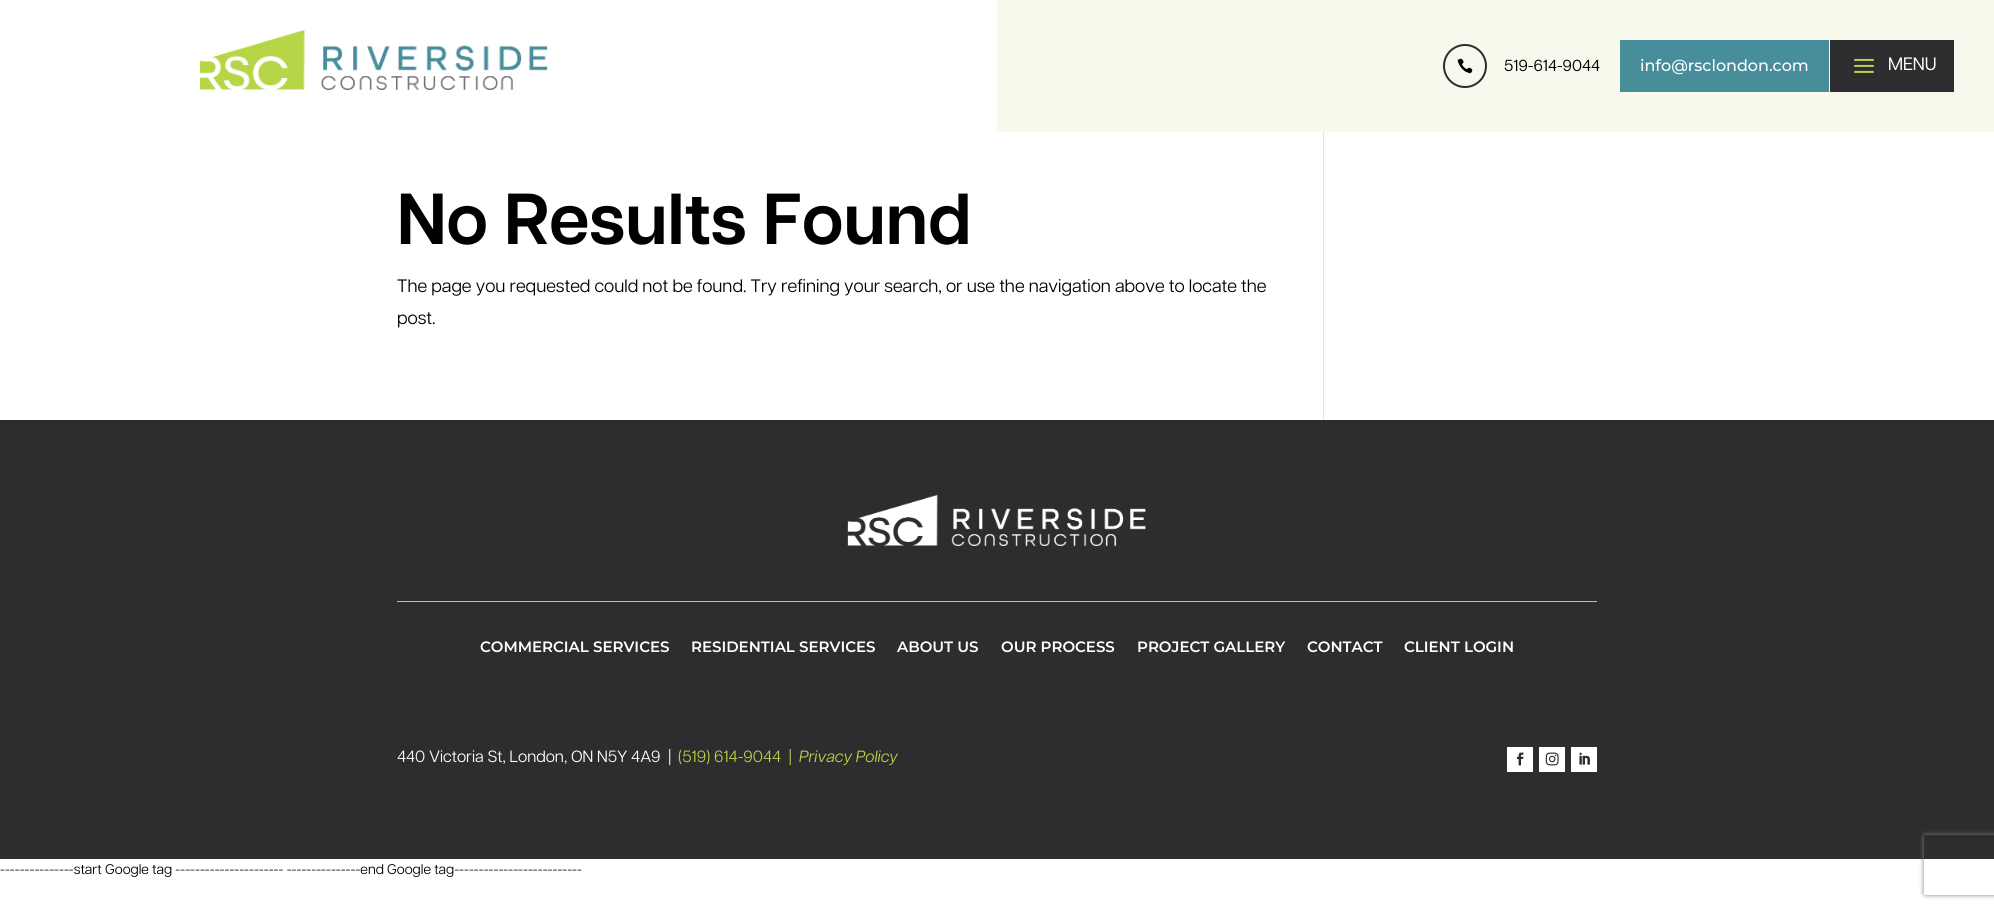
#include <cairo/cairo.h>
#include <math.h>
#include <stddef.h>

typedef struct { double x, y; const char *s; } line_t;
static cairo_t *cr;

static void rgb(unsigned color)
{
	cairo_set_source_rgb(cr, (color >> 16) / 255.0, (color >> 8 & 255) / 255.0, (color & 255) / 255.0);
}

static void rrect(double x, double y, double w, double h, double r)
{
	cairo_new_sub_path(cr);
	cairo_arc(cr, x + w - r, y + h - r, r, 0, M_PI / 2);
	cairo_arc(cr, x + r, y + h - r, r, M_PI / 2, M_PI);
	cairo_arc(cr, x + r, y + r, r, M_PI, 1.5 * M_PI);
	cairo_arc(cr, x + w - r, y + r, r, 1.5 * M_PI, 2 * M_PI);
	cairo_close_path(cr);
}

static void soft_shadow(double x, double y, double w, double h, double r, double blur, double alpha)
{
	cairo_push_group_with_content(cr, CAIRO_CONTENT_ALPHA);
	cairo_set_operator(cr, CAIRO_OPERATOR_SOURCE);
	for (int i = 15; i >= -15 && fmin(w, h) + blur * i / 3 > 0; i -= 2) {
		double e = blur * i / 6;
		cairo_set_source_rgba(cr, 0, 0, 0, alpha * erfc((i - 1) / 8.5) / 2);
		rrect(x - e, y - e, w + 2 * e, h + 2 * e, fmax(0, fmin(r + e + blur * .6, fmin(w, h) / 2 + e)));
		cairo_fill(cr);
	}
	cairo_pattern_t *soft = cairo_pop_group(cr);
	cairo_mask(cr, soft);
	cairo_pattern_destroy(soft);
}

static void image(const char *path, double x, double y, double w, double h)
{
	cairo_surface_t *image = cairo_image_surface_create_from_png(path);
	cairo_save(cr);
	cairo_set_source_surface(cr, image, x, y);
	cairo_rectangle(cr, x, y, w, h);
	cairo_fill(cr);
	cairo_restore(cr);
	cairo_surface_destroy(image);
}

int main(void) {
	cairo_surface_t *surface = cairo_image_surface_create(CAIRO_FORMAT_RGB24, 1994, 909);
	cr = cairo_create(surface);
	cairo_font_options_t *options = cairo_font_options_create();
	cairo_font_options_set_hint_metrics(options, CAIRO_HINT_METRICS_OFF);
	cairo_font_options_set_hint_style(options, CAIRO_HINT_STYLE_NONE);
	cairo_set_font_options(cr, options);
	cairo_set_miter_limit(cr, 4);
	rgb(0xffffff);
	cairo_paint(cr);
	image("img/1.png", 200, 30, 348, 60);
	rgb(0xf8f9ec);
	cairo_rectangle(cr, 997, 0, 997, 132);
	cairo_fill(cr);
	cairo_arc(cr, 1465, 66, 21, 0, 2 * M_PI);
	rgb(0x2d2d2f);
	cairo_stroke(cr);
	image("img/2.png", 1457, 58, 16, 16);
	rgb(0x488d9a);
	cairo_rectangle(cr, 1620, 40, 209, 52);
	cairo_fill(cr);
	rgb(0x2d2d2f);
	cairo_rectangle(cr, 1830, 40, 124, 52);
	cairo_fill(cr);
	image("img/3.png", 1854, 58, 20, 15);
	rgb(0xe2e2e2);
	cairo_rectangle(cr, 1323, 132, 1, 288);
	cairo_fill(cr);
	rgb(0x2d2d2f);
	cairo_rectangle(cr, 0, 420, 1994, 439);
	cairo_fill(cr);
	image("img/4.png", 847, 495, 299, 51);
	rgb(0xb6d547);
	cairo_rectangle(cr, 397, 601, 1200, 1);
	cairo_fill(cr);
	rgb(0xffffff);
	cairo_rectangle(cr, 1507, 747, 26, 25);
	cairo_fill(cr);
	image("img/5.png", 1517, 752, 7, 14);
	cairo_rectangle(cr, 1539, 747, 26, 25);
	cairo_fill(cr);
	image("img/6.png", 1545, 752, 14, 14);
	cairo_rectangle(cr, 1571, 747, 26, 25);
	cairo_fill(cr);
	image("img/7.png", 1579, 752, 11, 13);
	cairo_save(cr);
	cairo_set_fill_rule(cr, CAIRO_FILL_RULE_EVEN_ODD);
	cairo_new_path(cr);
	cairo_move_to(cr, 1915, 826);
	cairo_line_to(cr, 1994, 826);
	cairo_line_to(cr, 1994, 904);
	cairo_line_to(cr, 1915, 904);
	cairo_close_path(cr);
	cairo_move_to(cr, 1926, 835);
	cairo_line_to(cr, 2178, 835);
	cairo_curve_to(cr, 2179, 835, 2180, 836, 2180, 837);
	cairo_line_to(cr, 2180, 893);
	cairo_curve_to(cr, 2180, 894, 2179, 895, 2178, 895);
	cairo_line_to(cr, 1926, 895);
	cairo_curve_to(cr, 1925, 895, 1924, 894, 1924, 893);
	cairo_line_to(cr, 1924, 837);
	cairo_curve_to(cr, 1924, 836, 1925, 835, 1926, 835);
	cairo_close_path(cr);
	cairo_clip(cr);
	rgb(0x808080);
	soft_shadow(1924, 835, 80, 60, 2, 2.5, 1);
	cairo_restore(cr);
	cairo_select_font_face(cr, "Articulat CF", CAIRO_FONT_SLANT_NORMAL, CAIRO_FONT_WEIGHT_NORMAL);
	cairo_set_font_size(cr, 16);
	rgb(0x000000);
	cairo_move_to(cr, 1504, 71);
	cairo_show_text(cr, "519-614-9044");
	cairo_select_font_face(cr, "Montserrat Medium", CAIRO_FONT_SLANT_NORMAL, CAIRO_FONT_WEIGHT_NORMAL);
	rgb(0xffffff);
	cairo_move_to(cr, 1640, 71);
	cairo_show_text(cr, "info@rsclondon.com");
	cairo_select_font_face(cr, "Articulat CF", CAIRO_FONT_SLANT_NORMAL, CAIRO_FONT_WEIGHT_NORMAL);
	cairo_set_font_size(cr, 18);
	cairo_move_to(cr, 1888, 70);
	cairo_show_text(cr, "MENU");
	cairo_select_font_face(cr, "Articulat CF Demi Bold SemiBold", CAIRO_FONT_SLANT_NORMAL, CAIRO_FONT_WEIGHT_NORMAL);
	cairo_set_font_size(cr, 72);
	rgb(0x000000);
	cairo_move_to(cr, 397, 244);
	cairo_show_text(cr, "No Results Found");
	cairo_select_font_face(cr, "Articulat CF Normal", CAIRO_FONT_SLANT_NORMAL, CAIRO_FONT_WEIGHT_NORMAL);
	cairo_set_font_size(cr, 18);
	cairo_move_to(cr, 397, 292);
	cairo_show_text(cr, "The page you requested could not be found. Try refining your search, or use the navigation above to locate the");
	cairo_move_to(cr, 397, 324);
	cairo_show_text(cr, "post.");
	cairo_select_font_face(cr, "Montserrat SemiBold", CAIRO_FONT_SLANT_NORMAL, CAIRO_FONT_WEIGHT_NORMAL);
	cairo_set_font_size(cr, 15);
	rgb(0xffffff);
	{
		static const line_t items[] = {
			{480, 652, "COMMERCIAL SERVICES"},
			{691, 652, "RESIDENTIAL SERVICES"},
			{897, 652, "ABOUT US"},
			{1001, 652, "OUR PROCESS"},
			{1137, 652, "PROJECT GALLERY"},
			{1307, 652, "CONTACT"},
			{1404, 652, "CLIENT LOGIN"},
		};
		for (size_t i = 0; i < sizeof items / sizeof *items; i++) {
			cairo_move_to(cr, items[i].x, items[i].y);
			cairo_show_text(cr, items[i].s);
		}
	}
	cairo_select_font_face(cr, "Articulat CF Normal", CAIRO_FONT_SLANT_NORMAL, CAIRO_FONT_WEIGHT_NORMAL);
	cairo_set_font_size(cr, 16.25);
	cairo_move_to(cr, 397, 762);
	cairo_show_text(cr, "440 Victoria St, London, ON N5Y 4A9  |");
	rgb(0xb6d547);
	cairo_move_to(cr, 678, 762);
	cairo_show_text(cr, "(519) 614-9044  |");
	cairo_select_font_face(cr, "Articulat CF Normal", CAIRO_FONT_SLANT_ITALIC, CAIRO_FONT_WEIGHT_NORMAL);
	cairo_move_to(cr, 799, 762);
	cairo_show_text(cr, "Privacy Policy");
	cairo_select_font_face(cr, "Articulat CF Normal", CAIRO_FONT_SLANT_NORMAL, CAIRO_FONT_WEIGHT_NORMAL);
	cairo_set_font_size(cr, 14);
	rgb(0x000000);
	cairo_move_to(cr, 0, 874);
	cairo_show_text(cr, "---------------start Google tag ---------------------- ---------------end Google tag--------------------------");
	cairo_surface_write_to_png(surface, "page.png");
	cairo_font_options_destroy(options);
	cairo_destroy(cr);
	cairo_surface_destroy(surface);
	return 0;
}
